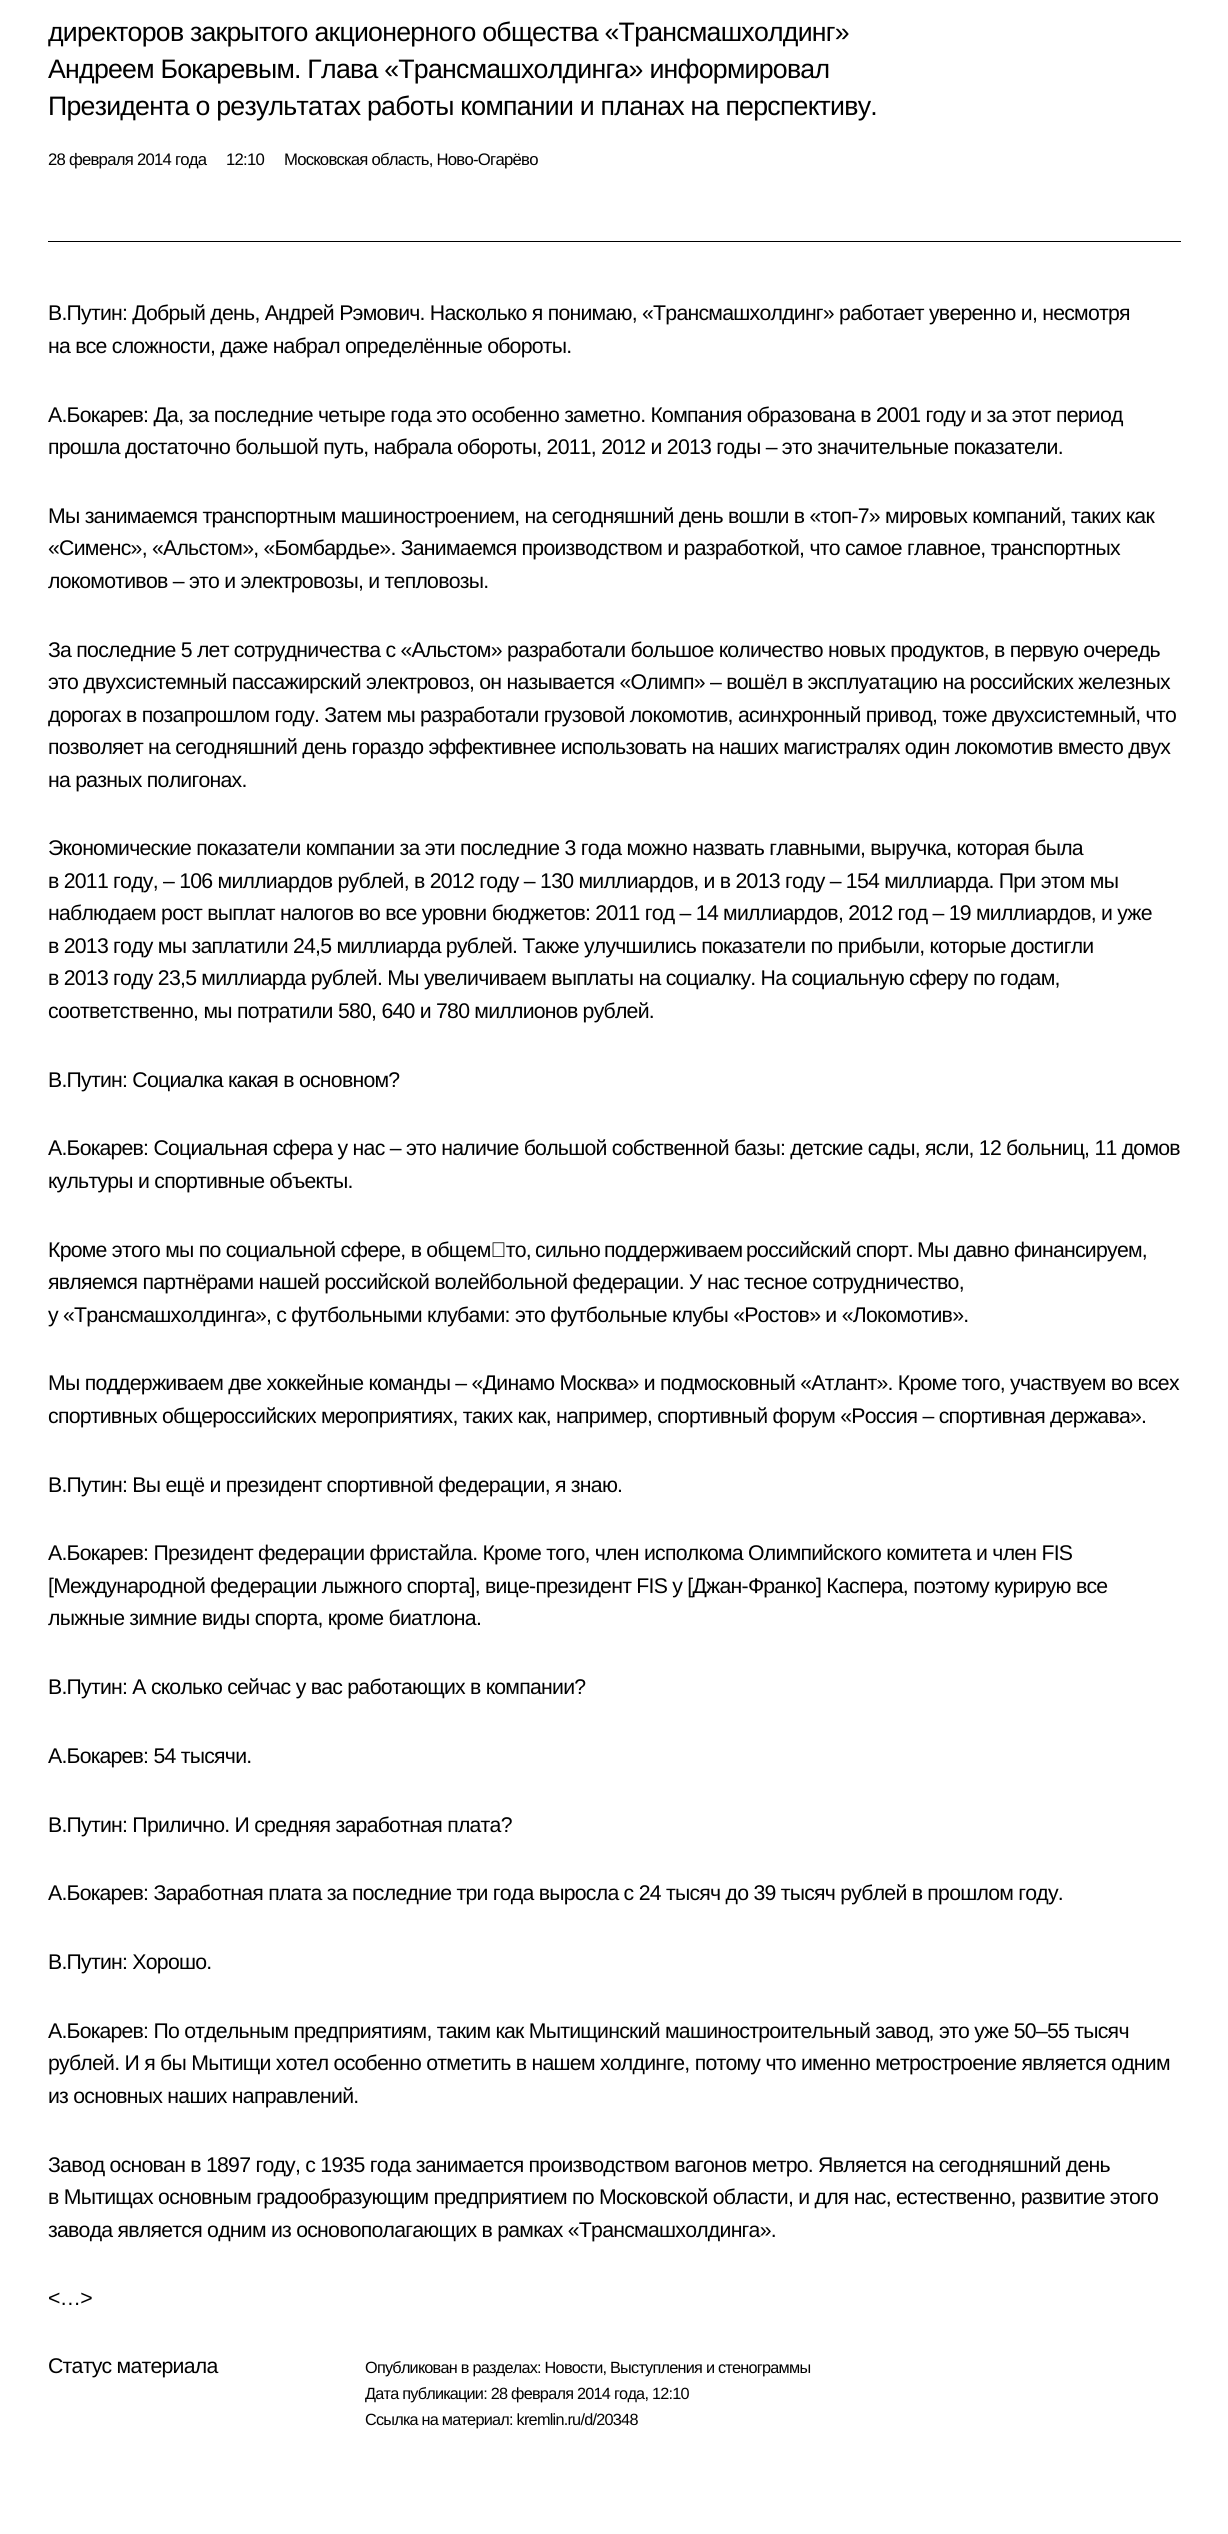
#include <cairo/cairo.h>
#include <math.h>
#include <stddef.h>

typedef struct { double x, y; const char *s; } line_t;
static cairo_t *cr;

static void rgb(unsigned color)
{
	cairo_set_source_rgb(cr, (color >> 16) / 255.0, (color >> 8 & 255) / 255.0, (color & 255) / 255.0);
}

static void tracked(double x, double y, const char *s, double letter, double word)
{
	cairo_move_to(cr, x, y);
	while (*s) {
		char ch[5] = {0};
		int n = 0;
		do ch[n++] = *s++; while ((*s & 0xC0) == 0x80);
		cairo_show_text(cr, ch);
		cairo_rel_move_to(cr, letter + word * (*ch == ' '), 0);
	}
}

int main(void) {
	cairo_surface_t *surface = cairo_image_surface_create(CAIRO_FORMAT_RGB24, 1228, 2534);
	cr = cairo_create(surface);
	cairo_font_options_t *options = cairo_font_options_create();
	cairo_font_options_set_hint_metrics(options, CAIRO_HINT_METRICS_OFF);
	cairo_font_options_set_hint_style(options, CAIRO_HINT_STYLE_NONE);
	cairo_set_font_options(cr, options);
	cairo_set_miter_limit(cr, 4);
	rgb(0xffffff);
	cairo_paint(cr);
	rgb(0x000000);
	cairo_rectangle(cr, 48, 241, 1133, 1);
	cairo_fill(cr);
	cairo_select_font_face(cr, "Liberation Sans", CAIRO_FONT_SLANT_NORMAL, CAIRO_FONT_WEIGHT_NORMAL);
	cairo_set_font_size(cr, 26.7);
	{
		static const line_t items[] = {
			{48, 41, "директоров закрытого акционерного общества «Трансмашхолдинг»"},
			{48, 78, "Андреем Бокаревым. Глава «Трансмашхолдинга» информировал"},
			{48, 115, "Президента о результатах работы компании и планах на перспективу."},
		};
		for (size_t i = 0; i < sizeof items / sizeof *items; i++) {
			tracked(items[i].x, items[i].y, items[i].s, -0.75, 0);
		}
	}
	cairo_set_font_size(cr, 16.7);
	{
		static const line_t items[] = {
			{48, 165, "28 февраля 2014 года"},
			{226, 165, "12:10"},
			{284, 165, "Московская область, Ново-Огарёво"},
		};
		for (size_t i = 0; i < sizeof items / sizeof *items; i++) {
			tracked(items[i].x, items[i].y, items[i].s, -0.75, 0);
		}
	}
	cairo_set_font_size(cr, 21.25);
	{
		static const line_t items[] = {
			{48, 320, "В.Путин: Добрый день, Андрей Рэмович. Насколько я понимаю, «Трансмашхолдинг» работает уверенно и, несмотря"},
			{48, 353, "на все сложности, даже набрал определённые обороты."},
			{48, 422, "А.Бокарев: Да, за последние четыре года это особенно заметно. Компания образована в 2001 году и за этот период"},
			{48, 454, "прошла достаточно большой путь, набрала обороты, 2011, 2012 и 2013 годы – это значительные показатели."},
			{48, 523, "Мы занимаемся транспортным машиностроением, на сегодняшний день вошли в «топ-7» мировых компаний, таких как"},
			{48, 555, "«Сименс», «Альстом», «Бомбардье». Занимаемся производством и разработкой, что самое главное, транспортных"},
			{48, 588, "локомотивов – это и электровозы, и тепловозы."},
			{48, 657, "За последние 5 лет сотрудничества с «Альстом» разработали большое количество новых продуктов, в первую очередь"},
			{48, 689, "это двухсистемный пассажирский электровоз, он называется «Олимп» – вошёл в эксплуатацию на российских железных"},
			{48, 722, "дорогах в позапрошлом году. Затем мы разработали грузовой локомотив, асинхронный привод, тоже двухсистемный, что"},
			{48, 754, "позволяет на сегодняшний день гораздо эффективнее использовать на наших магистралях один локомотив вместо двух"},
			{48, 787, "на разных полигонах."},
			{48, 855, "Экономические показатели компании за эти последние 3 года можно назвать главными, выручка, которая была"},
			{48, 888, "в 2011 году, – 106 миллиардов рублей, в 2012 году – 130 миллиардов, и в 2013 году – 154 миллиарда. При этом мы"},
			{48, 920, "наблюдаем рост выплат налогов во все уровни бюджетов: 2011 год – 14 миллиардов, 2012 год – 19 миллиардов, и уже"},
			{48, 953, "в 2013 году мы заплатили 24,5 миллиарда рублей. Также улучшились показатели по прибыли, которые достигли"},
			{48, 985, "в 2013 году 23,5 миллиарда рублей. Мы увеличиваем выплаты на социалку. На социальную сферу по годам,"},
			{48, 1018, "соответственно, мы потратили 580, 640 и 780 миллионов рублей."},
			{48, 1087, "В.Путин: Социалка какая в основном?"},
			{48, 1155, "А.Бокарев: Социальная сфера у нас – это наличие большой собственной базы: детские сады, ясли, 12 больниц, 11 домов"},
			{48, 1188, "культуры и спортивные объекты."},
			{48, 1257, "Кроме этого мы по социальной сфере, в общем‑то,"},
			{535, 1257, "сильно"},
			{604, 1257, "поддерживаем"},
			{746, 1257, "российский спорт."},
			{917, 1257, "Мы давно финансируем,"},
			{48, 1289, "являемся партнёрами нашей российской волейбольной федерации. У нас тесное сотрудничество,"},
			{48, 1322, "у «Трансмашхолдинга», с футбольными клубами: это футбольные клубы «Ростов» и «Локомотив»."},
			{48, 1390, "Мы поддерживаем две хоккейные команды – «Динамо Москва» и подмосковный «Атлант». Кроме того, участвуем во всех"},
			{48, 1423, "спортивных общероссийских мероприятиях, таких как, например, спортивный форум «Россия – спортивная держава»."},
			{48, 1492, "В.Путин: Вы ещё и президент спортивной федерации, я знаю."},
			{48, 1560, "А.Бокарев: Президент федерации фристайла. Кроме того, член исполкома Олимпийского комитета и член FIS"},
			{48, 1593, "[Международной федерации лыжного спорта], вице-президент FIS у [Джан-Франко] Каспера, поэтому курирую все"},
			{48, 1625, "лыжные зимние виды спорта, кроме биатлона."},
			{48, 1694, "В.Путин: А сколько сейчас у вас работающих в компании?"},
			{48, 1763, "А.Бокарев: 54 тысячи."},
			{48, 1832, "В.Путин: Прилично. И средняя заработная плата?"},
			{48, 1900, "А.Бокарев: Заработная плата за последние три года выросла с 24 тысяч до 39 тысяч рублей в прошлом году."},
			{48, 1969, "В.Путин: Хорошо."},
			{48, 2038, "А.Бокарев: По отдельным предприятиям, таким как Мытищинский машиностроительный завод, это уже 50–55 тысяч"},
			{48, 2070, "рублей. И я бы Мытищи хотел особенно отметить в нашем холдинге, потому что именно метростроение является одним"},
			{48, 2103, "из основных наших направлений."},
			{48, 2172, "Завод основан в 1897 году, с 1935 года занимается производством вагонов метро. Является на сегодняшний день"},
			{48, 2204, "в Мытищах основным градообразующим предприятием по Московской области, и для нас, естественно, развитие этого"},
			{48, 2237, "завода является одним из основополагающих в рамках «Трансмашхолдинга»."},
			{48, 2305, "<…>"},
			{48, 2373, "Статус материала"},
		};
		for (size_t i = 0; i < sizeof items / sizeof *items; i++) {
			tracked(items[i].x, items[i].y, items[i].s, -0.75, 0);
		}
	}
	cairo_set_font_size(cr, 16.25);
	{
		static const line_t items[] = {
			{365, 2373, "Опубликован в разделах: Новости, Выступления и стенограммы"},
			{365, 2399, "Дата публикации: 28 февраля 2014 года, 12:10"},
			{365, 2425, "Ссылка на материал: kremlin.ru/d/20348"},
		};
		for (size_t i = 0; i < sizeof items / sizeof *items; i++) {
			tracked(items[i].x, items[i].y, items[i].s, -0.75, 0);
		}
	}
	cairo_surface_write_to_png(surface, "page.png");
	cairo_font_options_destroy(options);
	cairo_destroy(cr);
	cairo_surface_destroy(surface);
	return 0;
}
